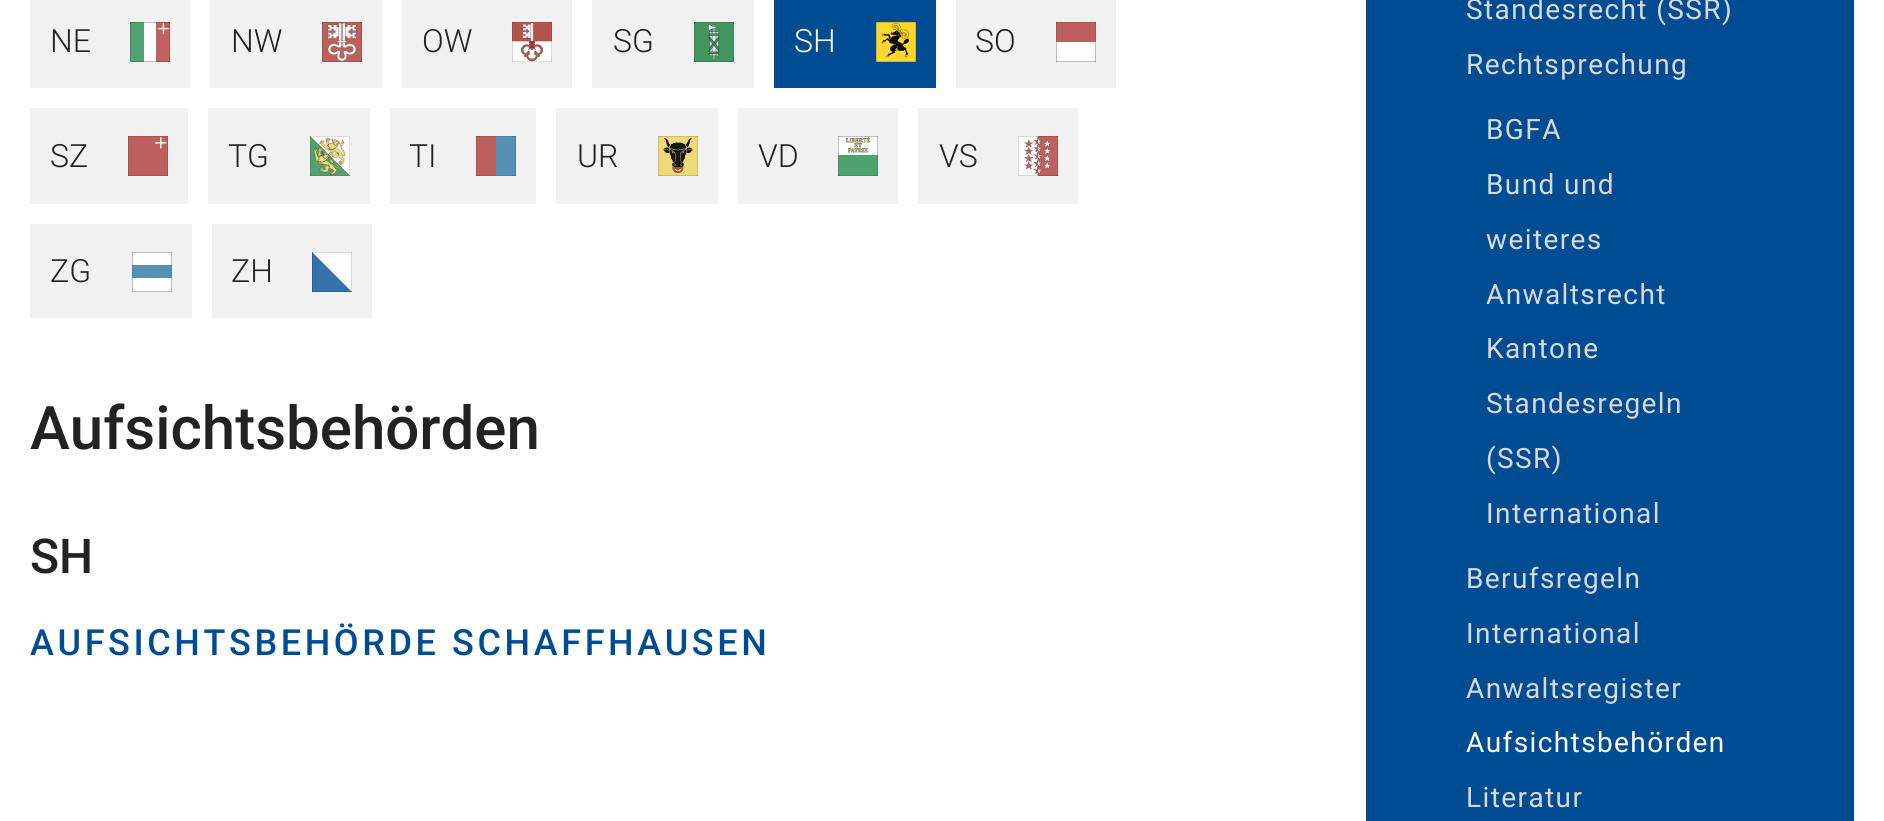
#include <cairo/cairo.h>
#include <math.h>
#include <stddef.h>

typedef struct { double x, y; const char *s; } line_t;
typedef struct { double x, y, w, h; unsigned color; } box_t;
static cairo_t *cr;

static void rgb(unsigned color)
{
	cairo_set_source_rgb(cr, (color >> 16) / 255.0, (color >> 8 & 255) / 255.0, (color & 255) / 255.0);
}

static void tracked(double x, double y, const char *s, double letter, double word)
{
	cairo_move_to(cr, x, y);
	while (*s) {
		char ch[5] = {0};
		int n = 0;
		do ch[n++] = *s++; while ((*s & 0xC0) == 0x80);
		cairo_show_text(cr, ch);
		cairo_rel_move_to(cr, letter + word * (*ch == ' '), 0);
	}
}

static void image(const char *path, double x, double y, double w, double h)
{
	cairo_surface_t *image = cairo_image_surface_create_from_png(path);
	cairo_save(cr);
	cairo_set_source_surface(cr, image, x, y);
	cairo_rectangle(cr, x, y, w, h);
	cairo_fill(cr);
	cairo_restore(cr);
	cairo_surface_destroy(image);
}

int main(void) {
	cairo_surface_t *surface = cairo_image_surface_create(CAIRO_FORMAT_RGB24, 1884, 821);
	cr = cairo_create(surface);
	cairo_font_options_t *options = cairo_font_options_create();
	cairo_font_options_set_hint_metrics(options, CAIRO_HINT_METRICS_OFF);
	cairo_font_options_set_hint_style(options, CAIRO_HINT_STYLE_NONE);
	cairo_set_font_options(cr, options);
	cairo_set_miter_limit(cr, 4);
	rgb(0xffffff);
	cairo_paint(cr);
	rgb(0xf2f1f1);
	cairo_rectangle(cr, 30, 0, 160, 88);
	cairo_fill(cr);
	image("img/1.png", 130, 22, 40, 40);
	cairo_rectangle(cr, 210, 0, 172, 88);
	cairo_fill(cr);
	image("img/2.png", 322, 22, 40, 40);
	cairo_rectangle(cr, 402, 0, 170, 88);
	cairo_fill(cr);
	image("img/3.png", 512, 22, 40, 40);
	cairo_rectangle(cr, 592, 0, 162, 88);
	cairo_fill(cr);
	image("img/4.png", 694, 22, 40, 40);
	rgb(0x004c93);
	cairo_rectangle(cr, 774, 0, 162, 88);
	cairo_fill(cr);
	image("img/5.png", 876, 22, 40, 40);
	rgb(0xf2f1f1);
	cairo_rectangle(cr, 956, 0, 160, 88);
	cairo_fill(cr);
	rgb(0xfefefe);
	cairo_rectangle(cr, 1056, 42, 40, 20);
	cairo_fill(cr);
	cairo_save(cr);
	cairo_rectangle(cr, 1056, 22, 40, 40);
	cairo_clip(cr);
	cairo_new_path(cr);
	cairo_move_to(cr, 1056, 22);
	cairo_line_to(cr, 1096, 22);
	cairo_line_to(cr, 1096, 62);
	cairo_line_to(cr, 1056, 62);
	cairo_close_path(cr);
	rgb(0x181818);
	cairo_set_line_width(cr, 0.3);
	cairo_stroke(cr);
	cairo_restore(cr);
	rgb(0xbe5f5d);
	cairo_rectangle(cr, 1056, 22, 40, 20);
	cairo_fill(cr);
	cairo_save(cr);
	cairo_rectangle(cr, 1056, 22, 40, 40);
	cairo_clip(cr);
	cairo_new_path(cr);
	cairo_move_to(cr, 1056, 22);
	cairo_line_to(cr, 1096, 22);
	cairo_line_to(cr, 1096, 62);
	cairo_line_to(cr, 1056, 62);
	cairo_close_path(cr);
	rgb(0x181818);
	cairo_set_line_width(cr, 0.3);
	cairo_stroke(cr);
	cairo_restore(cr);
	rgb(0xf2f1f1);
	cairo_rectangle(cr, 30, 108, 158, 96);
	cairo_fill(cr);
	image("img/6.png", 128, 136, 40, 40);
	cairo_rectangle(cr, 208, 108, 162, 96);
	cairo_fill(cr);
	image("img/7.png", 310, 136, 40, 40);
	{
		static const box_t items[] = {
			{390, 108, 146, 96, 0xf2f1f1},
			{476, 136, 20, 40, 0xbe5f5d},
			{496, 136, 20, 40, 0x5690b5},
		};
		for (size_t i = 0; i < sizeof items / sizeof *items; i++) {
			rgb(items[i].color);
			cairo_rectangle(cr, items[i].x, items[i].y, items[i].w, items[i].h);
			cairo_fill(cr);
		}
	}
	cairo_save(cr);
	cairo_rectangle(cr, 476, 136, 40, 40);
	cairo_clip(cr);
	cairo_new_path(cr);
	cairo_move_to(cr, 476, 136);
	cairo_line_to(cr, 516, 136);
	cairo_line_to(cr, 516, 176);
	cairo_line_to(cr, 476, 176);
	cairo_close_path(cr);
	rgb(0x181818);
	cairo_set_line_width(cr, 0.3);
	cairo_stroke(cr);
	cairo_restore(cr);
	rgb(0xf2f1f1);
	cairo_rectangle(cr, 556, 108, 162, 96);
	cairo_fill(cr);
	image("img/8.png", 658, 136, 40, 40);
	cairo_rectangle(cr, 738, 108, 160, 96);
	cairo_fill(cr);
	image("img/9.png", 838, 136, 40, 40);
	cairo_rectangle(cr, 918, 108, 160, 96);
	cairo_fill(cr);
	image("img/10.png", 1018, 136, 40, 40);
	cairo_rectangle(cr, 30, 224, 162, 94);
	cairo_fill(cr);
	rgb(0xfefefe);
	cairo_rectangle(cr, 132, 252, 40, 40);
	cairo_fill(cr);
	cairo_save(cr);
	cairo_rectangle(cr, 132, 252, 40, 40);
	cairo_clip(cr);
	cairo_new_path(cr);
	cairo_move_to(cr, 132, 252);
	cairo_line_to(cr, 172, 252);
	cairo_line_to(cr, 172, 292);
	cairo_line_to(cr, 132, 292);
	cairo_close_path(cr);
	rgb(0x181818);
	cairo_set_line_width(cr, 0.3);
	cairo_stroke(cr);
	cairo_restore(cr);
	rgb(0x5690b5);
	cairo_rectangle(cr, 132, 265, 40, 13);
	cairo_fill(cr);
	cairo_save(cr);
	cairo_rectangle(cr, 132, 252, 40, 40);
	cairo_clip(cr);
	cairo_new_path(cr);
	cairo_move_to(cr, 132, 252);
	cairo_line_to(cr, 172, 252);
	cairo_line_to(cr, 172, 292);
	cairo_line_to(cr, 132, 292);
	cairo_close_path(cr);
	rgb(0x181818);
	cairo_set_line_width(cr, 0.3);
	cairo_stroke(cr);
	cairo_restore(cr);
	rgb(0xf2f1f1);
	cairo_rectangle(cr, 212, 224, 160, 94);
	cairo_fill(cr);
	image("img/11.png", 312, 252, 40, 40);
	rgb(0x004c93);
	cairo_rectangle(cr, 1366, 0, 488, 821);
	cairo_fill(cr);
	cairo_select_font_face(cr, "Roboto Light", CAIRO_FONT_SLANT_NORMAL, CAIRO_FONT_WEIGHT_NORMAL);
	cairo_set_font_size(cr, 32);
	rgb(0x222222);
	{
		static const line_t items[] = {
			{50, 52, "NE"},
			{231, 52, "NW"},
			{422, 52, "OW"},
			{613, 52, "SG"},
		};
		for (size_t i = 0; i < sizeof items / sizeof *items; i++) {
			cairo_move_to(cr, items[i].x, items[i].y);
			cairo_show_text(cr, items[i].s);
		}
	}
	rgb(0xffffff);
	cairo_move_to(cr, 794, 52);
	cairo_show_text(cr, "SH");
	rgb(0x222222);
	{
		static const line_t items[] = {
			{975, 52, "SO"},
			{50, 167, "SZ"},
			{228, 167, "TG"},
			{409, 167, "TI"},
			{577, 167, "UR"},
			{758, 167, "VD"},
			{939, 167, "VS"},
			{50, 282, "ZG"},
			{231, 282, "ZH"},
		};
		for (size_t i = 0; i < sizeof items / sizeof *items; i++) {
			cairo_move_to(cr, items[i].x, items[i].y);
			cairo_show_text(cr, items[i].s);
		}
	}
	cairo_select_font_face(cr, "Roboto Medium", CAIRO_FONT_SLANT_NORMAL, CAIRO_FONT_WEIGHT_NORMAL);
	cairo_set_font_size(cr, 60);
	cairo_move_to(cr, 30, 449);
	cairo_show_text(cr, "Aufsichtsbehörden");
	cairo_set_font_size(cr, 48);
	cairo_move_to(cr, 30, 573);
	cairo_show_text(cr, "SH");
	cairo_set_font_size(cr, 36);
	rgb(0x004c93);
	tracked(30, 655, "AUFSICHTSBEHÖRDE SCHAFFHAUSEN", 3.6, 0);
	cairo_select_font_face(cr, "Roboto", CAIRO_FONT_SLANT_NORMAL, CAIRO_FONT_WEIGHT_NORMAL);
	cairo_set_font_size(cr, 28);
	rgb(0xd8d8d8);
	{
		static const line_t items[] = {
			{1466, 19, "Standesrecht (SSR)"},
			{1466, 74, "Rechtsprechung"},
			{1486, 139, "BGFA"},
			{1486, 194, "Bund und"},
			{1486, 249, "weiteres"},
			{1486, 304, "Anwaltsrecht"},
			{1486, 358, "Kantone"},
			{1486, 413, "Standesregeln"},
			{1486, 468, "(SSR)"},
			{1486, 523, "International"},
			{1466, 588, "Berufsregeln"},
			{1466, 643, "International"},
			{1466, 698, "Anwaltsregister"},
		};
		for (size_t i = 0; i < sizeof items / sizeof *items; i++) {
			tracked(items[i].x, items[i].y, items[i].s, 1.4, 0);
		}
	}
	rgb(0xffffff);
	tracked(1466, 752, "Aufsichtsbehörden", 1.4, 0);
	rgb(0xd8d8d8);
	tracked(1466, 807, "Literatur", 1.4, 0);
	cairo_surface_write_to_png(surface, "page.png");
	cairo_font_options_destroy(options);
	cairo_destroy(cr);
	cairo_surface_destroy(surface);
	return 0;
}
